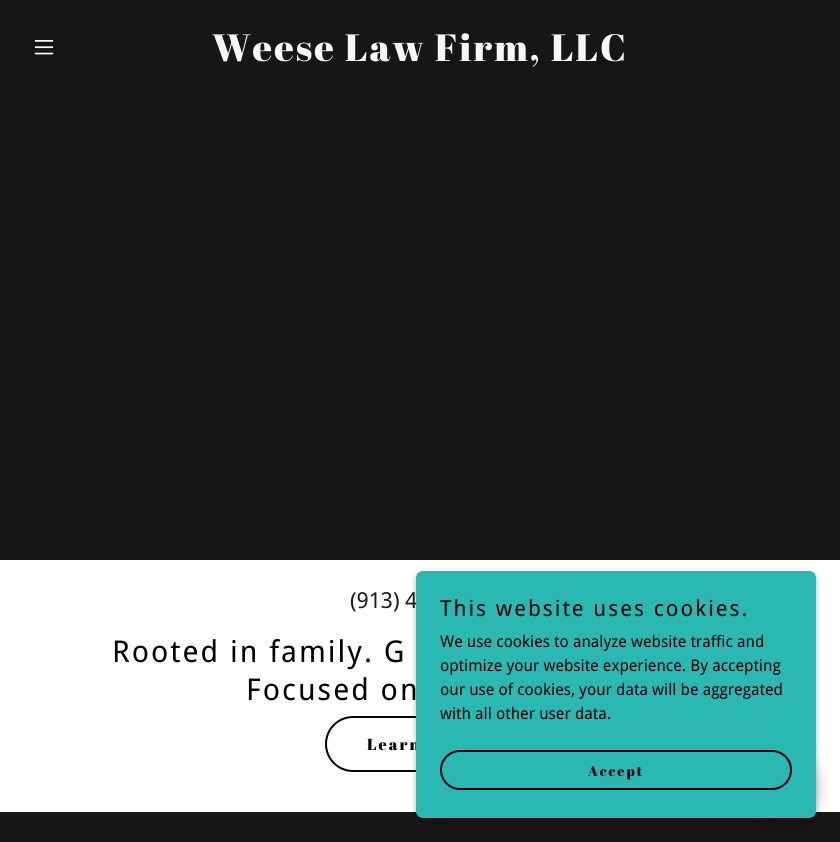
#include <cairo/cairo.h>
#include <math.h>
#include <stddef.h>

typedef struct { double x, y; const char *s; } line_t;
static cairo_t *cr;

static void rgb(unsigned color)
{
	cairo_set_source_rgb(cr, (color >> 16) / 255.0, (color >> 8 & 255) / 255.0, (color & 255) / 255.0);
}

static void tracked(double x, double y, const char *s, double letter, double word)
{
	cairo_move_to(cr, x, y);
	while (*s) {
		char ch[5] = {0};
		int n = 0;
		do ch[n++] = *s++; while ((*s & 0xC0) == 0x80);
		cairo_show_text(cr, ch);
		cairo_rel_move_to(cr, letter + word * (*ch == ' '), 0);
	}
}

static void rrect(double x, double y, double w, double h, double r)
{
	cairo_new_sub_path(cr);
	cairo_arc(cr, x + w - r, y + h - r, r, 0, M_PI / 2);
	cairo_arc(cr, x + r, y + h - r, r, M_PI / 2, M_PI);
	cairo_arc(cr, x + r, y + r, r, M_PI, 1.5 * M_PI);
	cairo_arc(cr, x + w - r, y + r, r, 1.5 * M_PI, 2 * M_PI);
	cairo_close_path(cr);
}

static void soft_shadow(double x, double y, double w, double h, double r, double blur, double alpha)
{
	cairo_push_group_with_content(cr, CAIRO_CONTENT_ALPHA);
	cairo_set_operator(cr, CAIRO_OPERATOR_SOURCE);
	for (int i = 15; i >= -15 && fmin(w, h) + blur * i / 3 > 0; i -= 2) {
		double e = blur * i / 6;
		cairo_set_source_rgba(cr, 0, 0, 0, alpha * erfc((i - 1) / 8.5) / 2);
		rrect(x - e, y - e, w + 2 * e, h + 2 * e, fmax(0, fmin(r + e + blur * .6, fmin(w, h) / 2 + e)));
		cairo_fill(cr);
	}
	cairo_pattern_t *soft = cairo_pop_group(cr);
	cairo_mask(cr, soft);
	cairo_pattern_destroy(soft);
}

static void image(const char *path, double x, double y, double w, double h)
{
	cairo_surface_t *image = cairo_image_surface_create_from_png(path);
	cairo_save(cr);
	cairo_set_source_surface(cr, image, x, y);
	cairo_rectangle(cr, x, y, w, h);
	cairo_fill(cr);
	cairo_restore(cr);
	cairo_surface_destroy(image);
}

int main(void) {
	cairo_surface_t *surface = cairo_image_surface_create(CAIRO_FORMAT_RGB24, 840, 842);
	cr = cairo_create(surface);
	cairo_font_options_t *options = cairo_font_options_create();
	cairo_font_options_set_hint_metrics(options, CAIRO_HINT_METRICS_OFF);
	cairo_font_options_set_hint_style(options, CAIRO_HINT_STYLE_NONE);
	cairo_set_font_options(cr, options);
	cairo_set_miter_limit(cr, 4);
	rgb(0x161616);
	cairo_paint(cr);
	image("img/1.png", 34, 40, 20, 15);
	rgb(0xffffff);
	cairo_rectangle(cr, 0, 560, 840, 252);
	cairo_fill(cr);
	rrect(326, 717, 188, 54, 27);
	rgb(0x000000);
	cairo_stroke(cr);
	rgb(0x000000);
	soft_shadow(416, 573, 400, 247, 7, 3, 0.3);
	soft_shadow(751, 756, 65, 65, 32.5, 9, 0.25);
	cairo_select_font_face(cr, "Abril Fatface", CAIRO_FONT_SLANT_NORMAL, CAIRO_FONT_WEIGHT_NORMAL);
	cairo_set_font_size(cr, 38);
	rgb(0xf7f7f7);
	tracked(212, 61, "Weese Law Firm, LLC", 2, 0);
	cairo_select_font_face(cr, "Droid Sans", CAIRO_FONT_SLANT_NORMAL, CAIRO_FONT_WEIGHT_NORMAL);
	cairo_set_font_size(cr, 22);
	rgb(0x1b1b1b);
	cairo_move_to(cr, 350, 608);
	cairo_show_text(cr, "(913) 4");
	cairo_set_font_size(cr, 30);
	rgb(0x000000);
	tracked(112, 662, "Rooted in family. G", 2, 0);
	tracked(246, 700, "Focused on", 2, 0);
	cairo_select_font_face(cr, "Abril Fatface", CAIRO_FONT_SLANT_NORMAL, CAIRO_FONT_WEIGHT_NORMAL);
	cairo_set_font_size(cr, 16);
	tracked(367, 750, "Learn", 2, 0);
	rgb(0x2bb8b3);
	rrect(416, 571, 400, 247, 7);
	cairo_fill(cr);
	cairo_select_font_face(cr, "Droid Sans", CAIRO_FONT_SLANT_NORMAL, CAIRO_FONT_WEIGHT_NORMAL);
	cairo_set_font_size(cr, 22);
	rgb(0x000000);
	tracked(440, 616, "This website uses cookies.", 2, 0);
	cairo_set_font_size(cr, 16);
	{
		static const line_t items[] = {
			{440, 647, "We use cookies to analyze website traffic and"},
			{440, 671, "optimize your website experience. By accepting"},
			{440, 695, "our use of cookies, your data will be aggregated"},
			{440, 719, "with all other user data."},
		};
		for (size_t i = 0; i < sizeof items / sizeof *items; i++) {
			cairo_move_to(cr, items[i].x, items[i].y);
			cairo_show_text(cr, items[i].s);
		}
	}
	rrect(441, 751, 350, 38, 19);
	cairo_stroke(cr);
	cairo_select_font_face(cr, "Abril Fatface", CAIRO_FONT_SLANT_NORMAL, CAIRO_FONT_WEIGHT_NORMAL);
	cairo_set_font_size(cr, 14);
	tracked(588, 776, "Accept", 2, 0);
	cairo_surface_write_to_png(surface, "page.png");
	cairo_font_options_destroy(options);
	cairo_destroy(cr);
	cairo_surface_destroy(surface);
	return 0;
}
